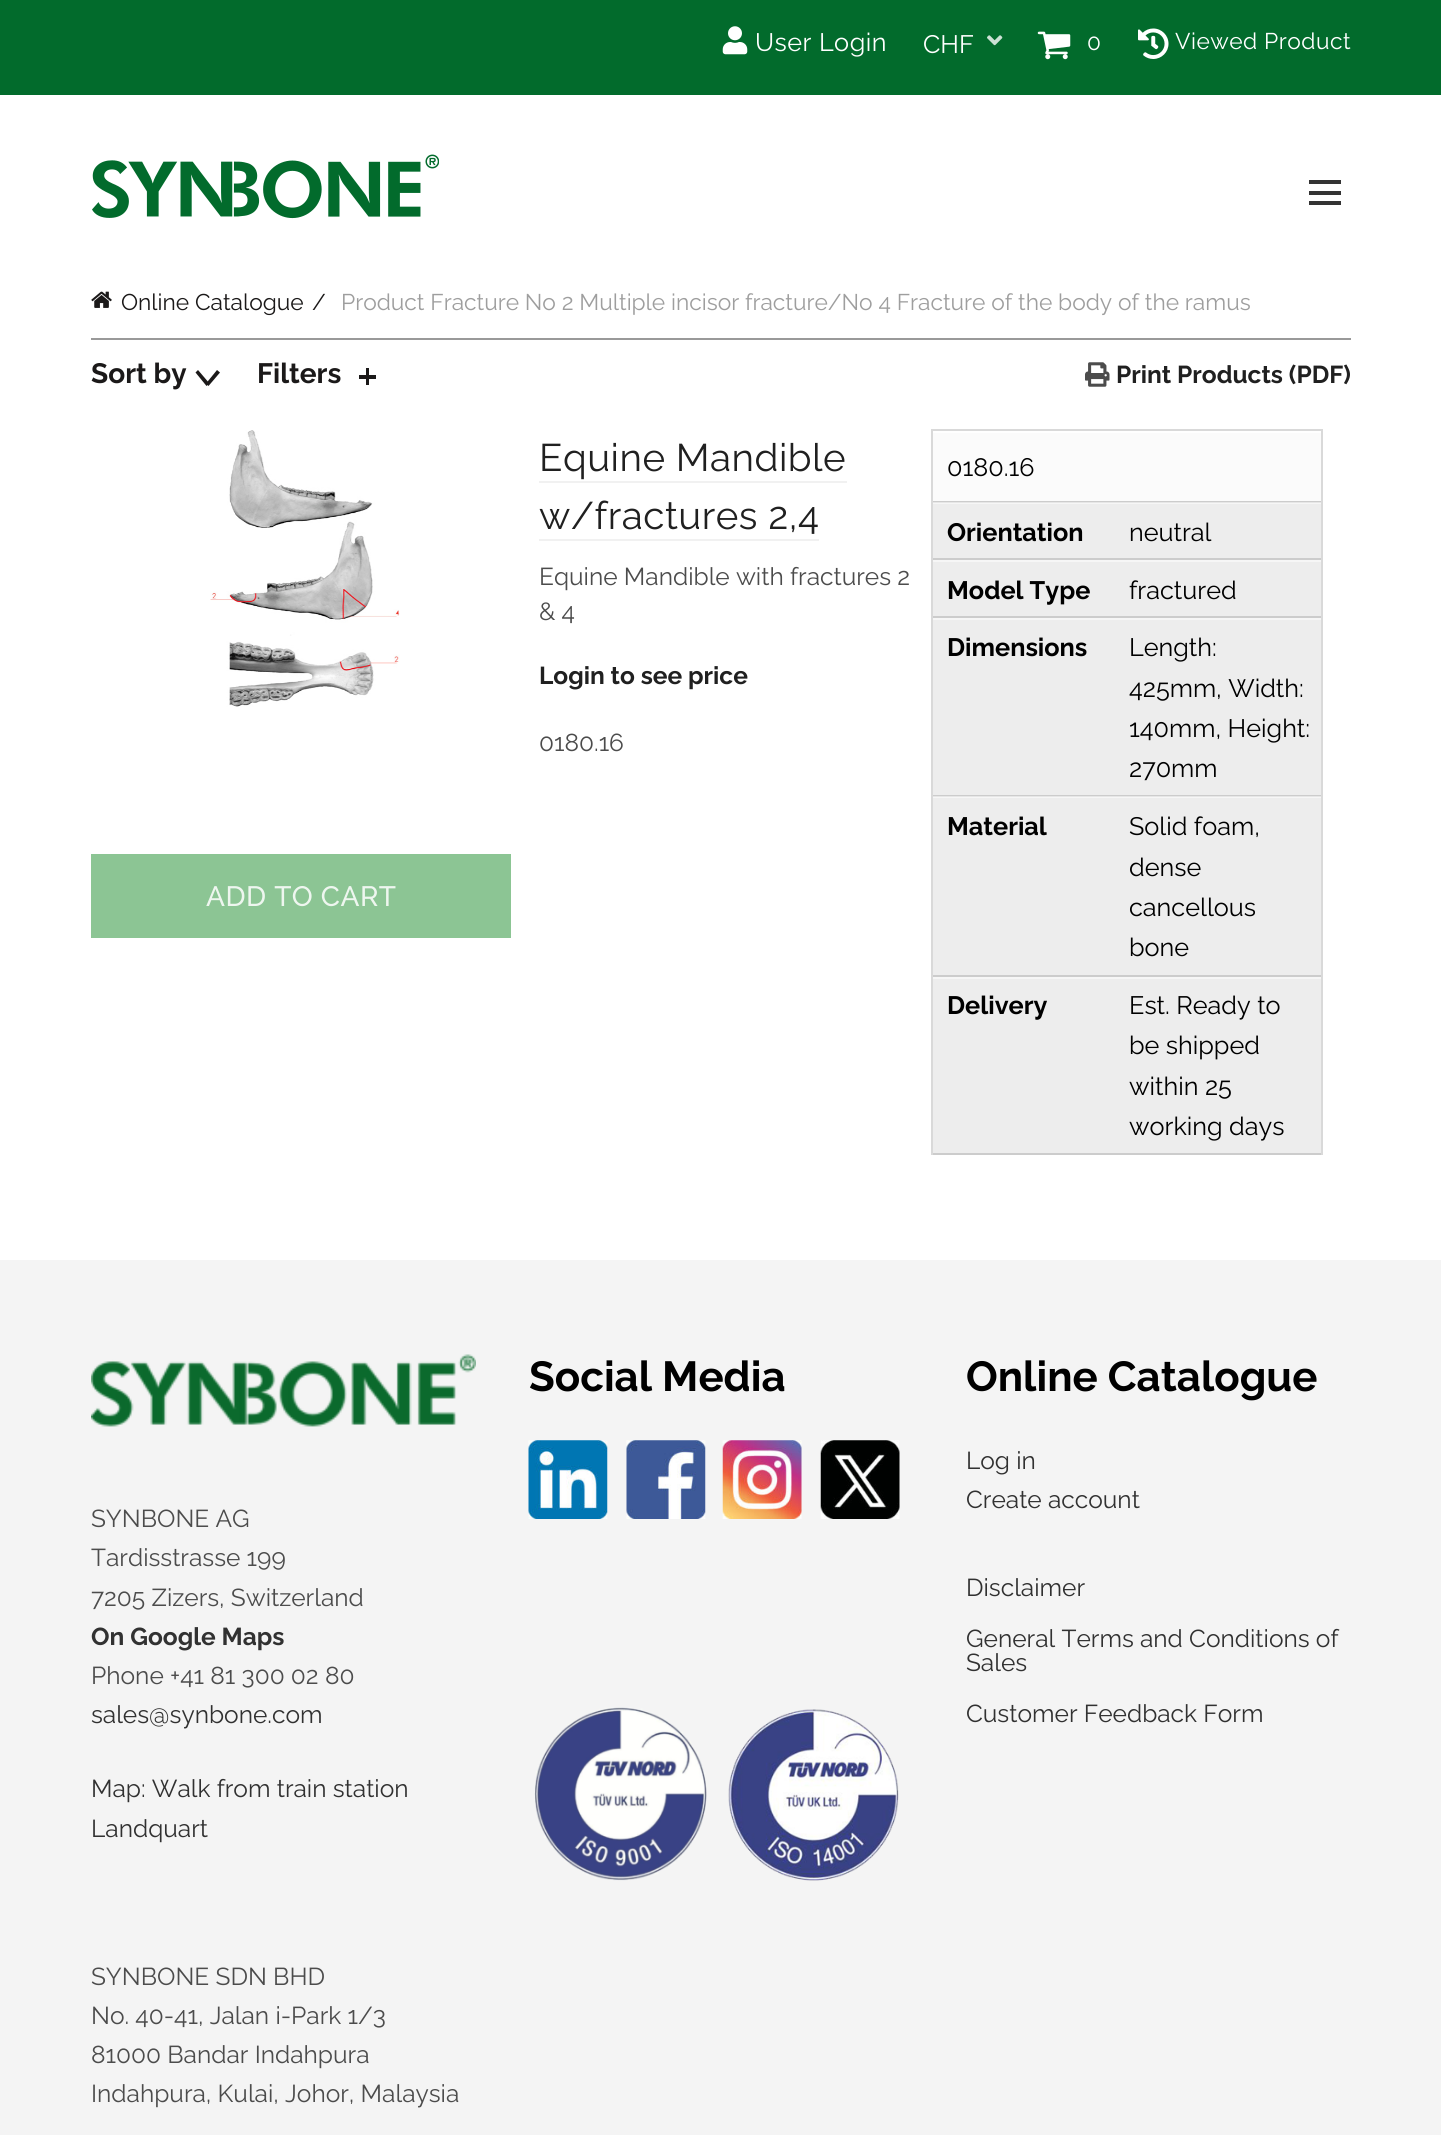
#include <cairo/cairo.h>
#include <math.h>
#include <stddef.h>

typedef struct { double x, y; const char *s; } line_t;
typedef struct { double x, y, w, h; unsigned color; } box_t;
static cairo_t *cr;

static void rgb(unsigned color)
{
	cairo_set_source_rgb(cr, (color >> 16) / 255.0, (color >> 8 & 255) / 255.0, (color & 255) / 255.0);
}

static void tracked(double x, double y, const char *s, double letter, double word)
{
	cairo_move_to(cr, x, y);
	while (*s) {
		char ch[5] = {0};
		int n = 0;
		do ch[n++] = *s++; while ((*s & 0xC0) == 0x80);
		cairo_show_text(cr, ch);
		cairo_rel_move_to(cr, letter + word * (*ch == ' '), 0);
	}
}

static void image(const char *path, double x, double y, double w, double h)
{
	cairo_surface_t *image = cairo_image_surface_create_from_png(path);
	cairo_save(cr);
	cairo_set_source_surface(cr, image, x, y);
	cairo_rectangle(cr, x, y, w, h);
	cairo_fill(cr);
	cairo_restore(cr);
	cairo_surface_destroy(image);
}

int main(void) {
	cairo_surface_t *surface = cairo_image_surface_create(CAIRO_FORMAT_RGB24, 1441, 2135);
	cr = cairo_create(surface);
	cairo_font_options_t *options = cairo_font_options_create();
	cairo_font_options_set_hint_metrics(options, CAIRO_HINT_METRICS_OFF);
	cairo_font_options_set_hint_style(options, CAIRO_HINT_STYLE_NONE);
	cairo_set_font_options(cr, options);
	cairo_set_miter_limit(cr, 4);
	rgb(0xffffff);
	cairo_paint(cr);
	rgb(0x026b2c);
	cairo_rectangle(cr, 0, 0, 1441, 95);
	cairo_fill(cr);
	image("img/1.png", 722, 26, 26, 29);
	image("img/2.png", 987, 35, 16, 11);
	image("img/3.png", 1037, 31, 34, 29);
	image("img/4.png", 1138, 28, 31, 31);
	image("img/5.png", 92, 154, 347, 65);
	{
		static const box_t items[] = {
			{1309, 191, 32, 4, 0x333333},
			{1309, 180, 32, 4, 0x333333},
			{1309, 201, 32, 4, 0x333333},
		};
		for (size_t i = 0; i < sizeof items / sizeof *items; i++) {
			rgb(items[i].color);
			cairo_rectangle(cr, items[i].x, items[i].y, items[i].w, items[i].h);
			cairo_fill(cr);
		}
	}
	image("img/6.png", 91, 291, 21, 17);
	rgb(0x999999);
	cairo_rectangle(cr, 91, 338, 1260, 2);
	cairo_fill(cr);
	rgb(0x1b1919);
	cairo_new_path(cr);
	cairo_move_to(cr, 206, 383.5);
	cairo_line_to(cr, 217, 370);
	cairo_line_to(cr, 220, 372.5);
	cairo_line_to(cr, 208.5, 386);
	cairo_close_path(cr);
	cairo_fill(cr);
	cairo_new_path(cr);
	cairo_move_to(cr, 198, 370);
	cairo_line_to(cr, 209.5, 383.5);
	cairo_line_to(cr, 206.5, 386);
	cairo_line_to(cr, 195.5, 372.5);
	cairo_close_path(cr);
	cairo_fill(cr);
	cairo_rectangle(cr, 366, 368, 3, 17);
	cairo_fill(cr);
	cairo_rectangle(cr, 359, 375, 17, 4);
	cairo_fill(cr);
	image("img/7.png", 1085, 362, 25, 25);
	image("img/8.png", 210, 430, 190, 277);
	{
		static const box_t items[] = {
			{91, 854, 420, 84, 0x8cc594},
			{539, 481, 308, 2, 0xf1f1f1},
			{539, 539, 280, 2, 0xf1f1f1},
			{933, 504, 388, 649, 0xededed},
			{933, 797, 388, 1, 0xf6f6f6},
			{933, 503, 388, 1, 0xf6f6f6},
			{931, 429, 392, 2, 0xd9d9d9},
			{1321, 429, 2, 726, 0xd9d9d9},
			{931, 429, 2, 726, 0xd9d9d9},
			{933, 433, 388, 68, 0xfbfbfb},
			{933, 501, 388, 1, 0xcccccc},
			{933, 502, 388, 1, 0xe6e6e6},
			{933, 558, 388, 2, 0xcccccc},
			{933, 560, 388, 2, 0xf6f6f6},
			{933, 616, 388, 2, 0xcccccc},
			{933, 618, 388, 2, 0xf6f6f6},
			{933, 795, 388, 1, 0xcccccc},
			{933, 796, 388, 1, 0xe6e6e6},
			{933, 975, 388, 2, 0xcccccc},
			{933, 977, 388, 2, 0xf6f6f6},
			{933, 1153, 388, 2, 0xcccccc},
			{0, 1260, 1441, 875, 0xf4f4f4},
		};
		for (size_t i = 0; i < sizeof items / sizeof *items; i++) {
			rgb(items[i].color);
			cairo_rectangle(cr, items[i].x, items[i].y, items[i].w, items[i].h);
			cairo_fill(cr);
		}
	}
	image("img/9.png", 91, 1354, 385, 73);
	image("img/10.png", 528, 1440, 80, 79);
	image("img/11.png", 626, 1440, 80, 79);
	image("img/12.png", 722, 1440, 80, 79);
	image("img/13.png", 820, 1440, 80, 79);
	image("img/14.png", 534, 1707, 173, 174);
	image("img/15.png", 728, 1709, 171, 172);
	cairo_select_font_face(cr, "Raleway", CAIRO_FONT_SLANT_NORMAL, CAIRO_FONT_WEIGHT_NORMAL);
	cairo_set_font_size(cr, 25.25);
	rgb(0xffffff);
	tracked(755, 51, "User Login", 0.5, 0);
	cairo_move_to(cr, 923, 53);
	cairo_show_text(cr, "CHF");
	cairo_set_font_size(cr, 22.75);
	tracked(1087, 50, "0", 0.5, 0);
	tracked(1175, 49, "Viewed Product", 0.5, 0);
	rgb(0x1b1919);
	cairo_move_to(cr, 121, 310);
	cairo_show_text(cr, "Online Catalogue");
	cairo_move_to(cr, 312, 310);
	cairo_show_text(cr, "/");
	rgb(0x9e9e9e);
	cairo_move_to(cr, 341, 310);
	cairo_show_text(cr, "Product Fracture No 2 Multiple incisor fracture/No 4 Fracture of the body of the ramus");
	cairo_select_font_face(cr, "Raleway", CAIRO_FONT_SLANT_NORMAL, CAIRO_FONT_WEIGHT_BOLD);
	cairo_set_font_size(cr, 28);
	rgb(0x1b1919);
	cairo_move_to(cr, 91, 383);
	cairo_show_text(cr, "Sort by");
	cairo_move_to(cr, 257, 383);
	cairo_show_text(cr, "Filters");
	cairo_set_font_size(cr, 24.5);
	rgb(0x202020);
	cairo_move_to(cr, 1116, 383);
	cairo_show_text(cr, "Print Products (PDF)");
	cairo_select_font_face(cr, "Raleway Medium", CAIRO_FONT_SLANT_NORMAL, CAIRO_FONT_WEIGHT_NORMAL);
	cairo_set_font_size(cr, 28);
	rgb(0xeef6ef);
	tracked(206, 906, "ADD TO CART", 0.5, 0);
	cairo_select_font_face(cr, "Raleway", CAIRO_FONT_SLANT_NORMAL, CAIRO_FONT_WEIGHT_NORMAL);
	cairo_set_font_size(cr, 38.5);
	rgb(0x202020);
	tracked(539, 471, "Equine Mandible", 0.5, 0);
	tracked(539, 529, "w/fractures 2,4", 0.5, 0);
	cairo_set_font_size(cr, 24.5);
	rgb(0x4c4c4c);
	cairo_move_to(cr, 539, 585);
	cairo_show_text(cr, "Equine Mandible with fractures 2");
	cairo_move_to(cr, 539, 620);
	cairo_show_text(cr, "& 4");
	cairo_select_font_face(cr, "Raleway", CAIRO_FONT_SLANT_NORMAL, CAIRO_FONT_WEIGHT_BOLD);
	rgb(0x202020);
	cairo_move_to(cr, 539, 684);
	cairo_show_text(cr, "Login to see price");
	cairo_select_font_face(cr, "Raleway", CAIRO_FONT_SLANT_NORMAL, CAIRO_FONT_WEIGHT_NORMAL);
	rgb(0x4c4c4c);
	cairo_move_to(cr, 539, 751);
	cairo_show_text(cr, "0180.16");
	cairo_set_font_size(cr, 25.25);
	rgb(0x000000);
	cairo_move_to(cr, 947, 476);
	cairo_show_text(cr, "0180.16");
	cairo_select_font_face(cr, "Raleway", CAIRO_FONT_SLANT_NORMAL, CAIRO_FONT_WEIGHT_BOLD);
	cairo_move_to(cr, 947, 541);
	cairo_show_text(cr, "Orientation");
	cairo_select_font_face(cr, "Raleway", CAIRO_FONT_SLANT_NORMAL, CAIRO_FONT_WEIGHT_NORMAL);
	cairo_move_to(cr, 1129, 541);
	cairo_show_text(cr, "neutral");
	cairo_select_font_face(cr, "Raleway", CAIRO_FONT_SLANT_NORMAL, CAIRO_FONT_WEIGHT_BOLD);
	cairo_move_to(cr, 947, 599);
	cairo_show_text(cr, "Model Type");
	cairo_select_font_face(cr, "Raleway", CAIRO_FONT_SLANT_NORMAL, CAIRO_FONT_WEIGHT_NORMAL);
	cairo_move_to(cr, 1129, 599);
	cairo_show_text(cr, "fractured");
	cairo_select_font_face(cr, "Raleway", CAIRO_FONT_SLANT_NORMAL, CAIRO_FONT_WEIGHT_BOLD);
	cairo_move_to(cr, 947, 656);
	cairo_show_text(cr, "Dimensions");
	cairo_select_font_face(cr, "Raleway", CAIRO_FONT_SLANT_NORMAL, CAIRO_FONT_WEIGHT_NORMAL);
	{
		static const line_t items[] = {
			{1129, 656, "Length:"},
			{1129, 697, "425mm, Width:"},
			{1129, 737, "140mm, Height:"},
			{1129, 777, "270mm"},
		};
		for (size_t i = 0; i < sizeof items / sizeof *items; i++) {
			cairo_move_to(cr, items[i].x, items[i].y);
			cairo_show_text(cr, items[i].s);
		}
	}
	cairo_select_font_face(cr, "Raleway", CAIRO_FONT_SLANT_NORMAL, CAIRO_FONT_WEIGHT_BOLD);
	cairo_move_to(cr, 947, 835);
	cairo_show_text(cr, "Material");
	cairo_select_font_face(cr, "Raleway", CAIRO_FONT_SLANT_NORMAL, CAIRO_FONT_WEIGHT_NORMAL);
	{
		static const line_t items[] = {
			{1129, 835, "Solid foam,"},
			{1129, 876, "dense"},
			{1129, 916, "cancellous"},
			{1129, 956, "bone"},
		};
		for (size_t i = 0; i < sizeof items / sizeof *items; i++) {
			cairo_move_to(cr, items[i].x, items[i].y);
			cairo_show_text(cr, items[i].s);
		}
	}
	cairo_select_font_face(cr, "Raleway", CAIRO_FONT_SLANT_NORMAL, CAIRO_FONT_WEIGHT_BOLD);
	cairo_move_to(cr, 947, 1014);
	cairo_show_text(cr, "Delivery");
	cairo_select_font_face(cr, "Raleway", CAIRO_FONT_SLANT_NORMAL, CAIRO_FONT_WEIGHT_NORMAL);
	{
		static const line_t items[] = {
			{1129, 1014, "Est. Ready to"},
			{1129, 1054, "be shipped"},
			{1129, 1095, "within 25"},
			{1129, 1135, "working days"},
		};
		for (size_t i = 0; i < sizeof items / sizeof *items; i++) {
			cairo_move_to(cr, items[i].x, items[i].y);
			cairo_show_text(cr, items[i].s);
		}
	}
	cairo_set_font_size(cr, 24.5);
	rgb(0x4c4c4c);
	{
		static const line_t items[] = {
			{91, 1527, "SYNBONE AG"},
			{91, 1566, "Tardisstrasse 199"},
			{91, 1606, "7205 Zizers, Switzerland"},
		};
		for (size_t i = 0; i < sizeof items / sizeof *items; i++) {
			cairo_move_to(cr, items[i].x, items[i].y);
			cairo_show_text(cr, items[i].s);
		}
	}
	cairo_select_font_face(cr, "Raleway", CAIRO_FONT_SLANT_NORMAL, CAIRO_FONT_WEIGHT_BOLD);
	rgb(0x313131);
	cairo_move_to(cr, 91, 1645);
	cairo_show_text(cr, "On Google Maps");
	cairo_select_font_face(cr, "Raleway", CAIRO_FONT_SLANT_NORMAL, CAIRO_FONT_WEIGHT_NORMAL);
	rgb(0x4c4c4c);
	cairo_move_to(cr, 91, 1684);
	cairo_show_text(cr, "Phone +41 81 300 02 80");
	rgb(0x313131);
	{
		static const line_t items[] = {
			{91, 1723, "sales@synbone.com"},
			{91, 1797, "Map: Walk from train station"},
			{91, 1837, "Landquart"},
		};
		for (size_t i = 0; i < sizeof items / sizeof *items; i++) {
			cairo_move_to(cr, items[i].x, items[i].y);
			cairo_show_text(cr, items[i].s);
		}
	}
	rgb(0x4c4c4c);
	{
		static const line_t items[] = {
			{91, 1985, "SYNBONE SDN BHD"},
			{91, 2024, "No. 40-41, Jalan i-Park 1/3"},
			{91, 2063, "81000 Bandar Indahpura"},
			{91, 2102, "Indahpura, Kulai, Johor, Malaysia"},
		};
		for (size_t i = 0; i < sizeof items / sizeof *items; i++) {
			cairo_move_to(cr, items[i].x, items[i].y);
			cairo_show_text(cr, items[i].s);
		}
	}
	cairo_select_font_face(cr, "Raleway", CAIRO_FONT_SLANT_NORMAL, CAIRO_FONT_WEIGHT_BOLD);
	cairo_set_font_size(cr, 42);
	rgb(0x000000);
	cairo_move_to(cr, 529, 1391);
	cairo_show_text(cr, "Social Media");
	cairo_move_to(cr, 966, 1391);
	cairo_show_text(cr, "Online Catalogue");
	cairo_select_font_face(cr, "Raleway", CAIRO_FONT_SLANT_NORMAL, CAIRO_FONT_WEIGHT_NORMAL);
	cairo_set_font_size(cr, 24.5);
	rgb(0x313131);
	{
		static const line_t items[] = {
			{966, 1469, "Log in"},
			{966, 1508, "Create account"},
			{966, 1596, "Disclaimer"},
			{966, 1647, "General Terms and Conditions of"},
			{966, 1671, "Sales"},
			{966, 1722, "Customer Feedback Form"},
		};
		for (size_t i = 0; i < sizeof items / sizeof *items; i++) {
			cairo_move_to(cr, items[i].x, items[i].y);
			cairo_show_text(cr, items[i].s);
		}
	}
	cairo_surface_write_to_png(surface, "page.png");
	cairo_font_options_destroy(options);
	cairo_destroy(cr);
	cairo_surface_destroy(surface);
	return 0;
}
